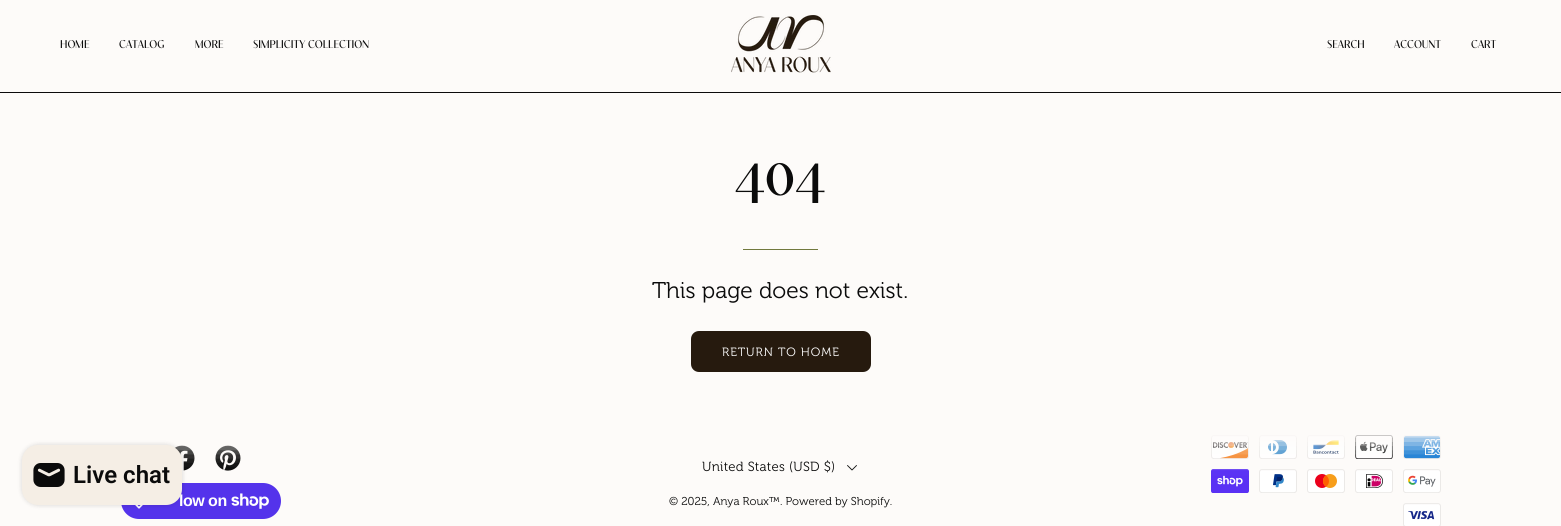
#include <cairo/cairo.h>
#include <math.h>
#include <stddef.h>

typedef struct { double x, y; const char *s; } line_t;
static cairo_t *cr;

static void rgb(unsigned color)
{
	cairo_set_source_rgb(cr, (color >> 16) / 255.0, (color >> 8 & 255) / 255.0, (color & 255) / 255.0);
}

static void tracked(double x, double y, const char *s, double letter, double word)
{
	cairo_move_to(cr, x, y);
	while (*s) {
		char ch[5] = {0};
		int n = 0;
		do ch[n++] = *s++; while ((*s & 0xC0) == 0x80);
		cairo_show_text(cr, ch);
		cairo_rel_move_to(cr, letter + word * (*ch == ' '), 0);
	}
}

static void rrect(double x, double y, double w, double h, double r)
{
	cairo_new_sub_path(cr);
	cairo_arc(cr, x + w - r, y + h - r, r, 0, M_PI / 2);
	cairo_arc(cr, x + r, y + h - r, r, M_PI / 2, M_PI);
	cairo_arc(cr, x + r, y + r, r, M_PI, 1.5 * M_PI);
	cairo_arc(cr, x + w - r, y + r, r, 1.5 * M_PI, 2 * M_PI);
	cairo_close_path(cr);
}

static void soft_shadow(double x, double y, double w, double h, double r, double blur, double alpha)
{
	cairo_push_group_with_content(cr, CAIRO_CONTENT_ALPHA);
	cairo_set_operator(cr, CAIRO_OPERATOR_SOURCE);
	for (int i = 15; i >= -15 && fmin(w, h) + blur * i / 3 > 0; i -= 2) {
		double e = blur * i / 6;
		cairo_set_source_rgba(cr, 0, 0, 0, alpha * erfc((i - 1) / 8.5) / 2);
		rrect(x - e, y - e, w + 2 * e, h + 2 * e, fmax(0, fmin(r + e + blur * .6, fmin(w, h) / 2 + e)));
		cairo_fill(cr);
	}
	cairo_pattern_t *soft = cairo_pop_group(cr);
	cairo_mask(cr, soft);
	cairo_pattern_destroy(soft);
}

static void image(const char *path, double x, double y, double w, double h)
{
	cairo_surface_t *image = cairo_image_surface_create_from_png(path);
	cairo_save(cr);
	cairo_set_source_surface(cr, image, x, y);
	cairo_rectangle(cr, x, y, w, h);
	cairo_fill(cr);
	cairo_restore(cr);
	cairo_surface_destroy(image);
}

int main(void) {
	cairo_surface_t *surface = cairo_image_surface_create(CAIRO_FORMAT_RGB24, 1561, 526);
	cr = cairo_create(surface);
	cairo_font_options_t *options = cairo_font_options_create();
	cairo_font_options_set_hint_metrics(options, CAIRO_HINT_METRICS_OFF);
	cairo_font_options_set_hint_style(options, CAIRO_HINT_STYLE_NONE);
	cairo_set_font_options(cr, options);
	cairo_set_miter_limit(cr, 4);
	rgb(0xfdfbf9);
	cairo_paint(cr);
	image("img/1.png", 731, 15, 100, 58);
	image("img/3.png", 174, 445, 21, 26);
	image("img/4.png", 215, 445, 26, 26);
	cairo_new_path(cr);
	cairo_move_to(cr, 856.5, 465.5);
	cairo_line_to(cr, 852, 470);
	cairo_line_to(cr, 847.5, 465.5);
	rgb(0x0b0b0b);
	cairo_set_line_width(cr, 0.9);
	cairo_set_line_cap(cr, CAIRO_LINE_CAP_ROUND);
	cairo_set_line_join(cr, CAIRO_LINE_JOIN_ROUND);
	cairo_stroke(cr);
	image("img/7.png", 1211, 435, 38, 24);
	image("img/8.png", 1259, 435, 38, 24);
	image("img/9.png", 1307, 435, 38, 24);
	image("img/10.png", 1355, 435, 38, 24);
	image("img/11.png", 1403, 435, 38, 24);
	image("img/12.png", 1211, 469, 38, 24);
	image("img/13.png", 1259, 469, 38, 24);
	image("img/14.png", 1307, 469, 38, 24);
	image("img/15.png", 1355, 469, 38, 24);
	image("img/16.png", 1403, 469, 38, 24);
	rgb(0xfdfbf9);
	soft_shadow(10, 127, 1541, 317, 0, 12.5, 1);
	rgb(0x0b0b0b);
	cairo_rectangle(cr, 0, 92, 1561, 1);
	cairo_fill(cr);
	rgb(0x71793e);
	cairo_rectangle(cr, 743, 249, 75, 1);
	cairo_fill(cr);
	rgb(0x261a0e);
	rrect(691, 331, 180, 41, 8);
	cairo_fill(cr);
	rgb(0x5433eb);
	rrect(121, 483, 160, 36, 18);
	cairo_fill(cr);
	image("img/5.png", 135, 505, 8, 4);
	rgb(0x000000);
	soft_shadow(22, 445, 160, 60, 16, 2.5, 0.15);
	image("img/6.png", 231, 493, 38, 16);
	image("img/17.png", 1403, 503, 38, 23);
	cairo_select_font_face(cr, "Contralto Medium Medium", CAIRO_FONT_SLANT_NORMAL, CAIRO_FONT_WEIGHT_NORMAL);
	cairo_set_font_size(cr, 11.25);
	rgb(0x0b0b0b);
	{
		static const line_t items[] = {
			{60, 48, "HOME"},
			{119, 48, "CATALOG"},
			{195, 48, "MORE"},
			{253, 48, "SIMPLICITY COLLECTION"},
			{1327, 48, "SEARCH"},
			{1394, 48, "ACCOUNT"},
			{1471, 48, "CART"},
		};
		for (size_t i = 0; i < sizeof items / sizeof *items; i++) {
			cairo_move_to(cr, items[i].x, items[i].y);
			cairo_show_text(cr, items[i].s);
		}
	}
	cairo_set_font_size(cr, 61);
	cairo_move_to(cr, 735, 195);
	cairo_show_text(cr, "404");
	cairo_select_font_face(cr, "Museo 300 Light", CAIRO_FONT_SLANT_NORMAL, CAIRO_FONT_WEIGHT_NORMAL);
	cairo_set_font_size(cr, 22.75);
	cairo_move_to(cr, 652, 298);
	cairo_show_text(cr, "This page does not exist.");
	cairo_set_font_size(cr, 12);
	rgb(0xffffff);
	tracked(722, 356, "RETURN TO HOME", 0.9, 0);
	cairo_select_font_face(cr, "Liberation Sans", CAIRO_FONT_SLANT_NORMAL, CAIRO_FONT_WEIGHT_BOLD);
	cairo_set_font_size(cr, 16);
	tracked(179, 506, "low on", -0.5, 0);
	rgb(0xf5eee5);
	rrect(22, 445, 160, 60, 16);
	cairo_fill(cr);
	cairo_select_font_face(cr, "Roboto SemiBold", CAIRO_FONT_SLANT_NORMAL, CAIRO_FONT_WEIGHT_NORMAL);
	cairo_set_font_size(cr, 24);
	rgb(0x0b0b0b);
	cairo_move_to(cr, 73, 483);
	cairo_show_text(cr, "Live chat");
	image("img/2.png", 33, 463, 32, 24);
	cairo_select_font_face(cr, "Museo 300 Light", CAIRO_FONT_SLANT_NORMAL, CAIRO_FONT_WEIGHT_NORMAL);
	cairo_set_font_size(cr, 13.25);
	tracked(702, 471, "United States (USD $)", 0.25, 0);
	cairo_set_font_size(cr, 11.4);
	cairo_move_to(cr, 669, 505);
	cairo_show_text(cr, "© 2025, Anya Roux™. Powered by Shopify.");
	cairo_surface_write_to_png(surface, "page.png");
	cairo_font_options_destroy(options);
	cairo_destroy(cr);
	cairo_surface_destroy(surface);
	return 0;
}
